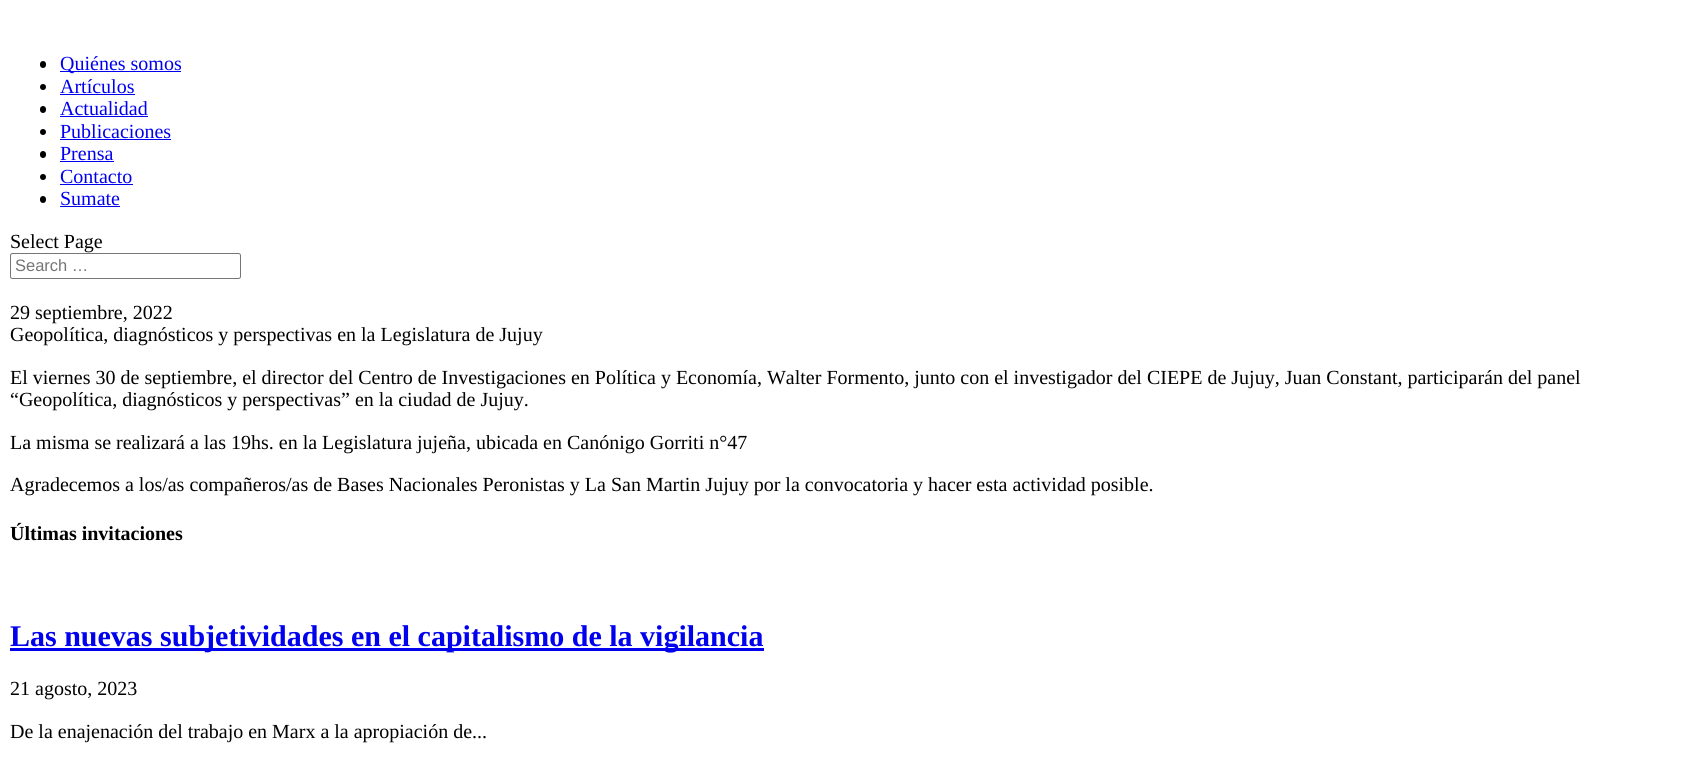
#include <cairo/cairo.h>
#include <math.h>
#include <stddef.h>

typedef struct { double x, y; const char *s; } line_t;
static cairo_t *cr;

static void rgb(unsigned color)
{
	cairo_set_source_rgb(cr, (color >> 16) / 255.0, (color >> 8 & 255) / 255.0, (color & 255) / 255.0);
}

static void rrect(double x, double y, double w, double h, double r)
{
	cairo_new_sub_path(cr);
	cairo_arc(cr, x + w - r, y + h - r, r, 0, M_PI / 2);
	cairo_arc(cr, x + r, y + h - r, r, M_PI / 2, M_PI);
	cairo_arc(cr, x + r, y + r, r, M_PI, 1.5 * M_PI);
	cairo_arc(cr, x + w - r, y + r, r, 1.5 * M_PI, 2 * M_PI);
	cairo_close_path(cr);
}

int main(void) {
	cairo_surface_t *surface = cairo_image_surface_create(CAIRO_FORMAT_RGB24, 1699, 776);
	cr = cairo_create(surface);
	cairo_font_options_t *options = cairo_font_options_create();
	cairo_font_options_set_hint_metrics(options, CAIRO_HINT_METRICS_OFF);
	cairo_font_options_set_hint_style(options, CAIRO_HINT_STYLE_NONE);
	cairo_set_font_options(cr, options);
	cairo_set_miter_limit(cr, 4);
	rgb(0xffffff);
	cairo_paint(cr);
	rgb(0x000000);
	rrect(40, 61, 6, 7, 3);
	cairo_fill(cr);
	rgb(0x0000ee);
	cairo_rectangle(cr, 60, 71, 121, 1);
	cairo_fill(cr);
	rgb(0x000000);
	cairo_arc(cr, 43, 87, 3, 0, 2 * M_PI);
	cairo_fill(cr);
	rgb(0x0000ee);
	cairo_rectangle(cr, 60, 94, 75, 1);
	cairo_fill(cr);
	rgb(0x000000);
	rrect(40, 106, 6, 7, 3);
	cairo_fill(cr);
	rgb(0x0000ee);
	cairo_rectangle(cr, 60, 116, 88, 1);
	cairo_fill(cr);
	rgb(0x000000);
	cairo_arc(cr, 43, 132, 3, 0, 2 * M_PI);
	cairo_fill(cr);
	rgb(0x0000ee);
	cairo_rectangle(cr, 60, 139, 111, 1);
	cairo_fill(cr);
	rgb(0x000000);
	rrect(40, 151, 6, 7, 3);
	cairo_fill(cr);
	rgb(0x0000ee);
	cairo_rectangle(cr, 60, 161, 54, 1);
	cairo_fill(cr);
	rgb(0x000000);
	cairo_arc(cr, 43, 177, 3, 0, 2 * M_PI);
	cairo_fill(cr);
	rgb(0x0000ee);
	cairo_rectangle(cr, 60, 184, 73, 1);
	cairo_fill(cr);
	rgb(0x000000);
	rrect(40, 196, 6, 7, 3);
	cairo_fill(cr);
	rgb(0x0000ee);
	cairo_rectangle(cr, 60, 206, 60, 1);
	cairo_fill(cr);
	rrect(10.5, 253.5, 230, 25, 2);
	rgb(0x767676);
	cairo_set_line_width(cr, 1);
	cairo_stroke(cr);
	rgb(0x0000ee);
	cairo_rectangle(cr, 10, 648, 754, 3);
	cairo_fill(cr);
	cairo_select_font_face(cr, "Liberation Serif", CAIRO_FONT_SLANT_NORMAL, CAIRO_FONT_WEIGHT_NORMAL);
	cairo_set_font_size(cr, 20);
	{
		static const line_t items[] = {
			{60, 70, "Quiénes somos"},
			{60, 93, "Artículos"},
			{60, 115, "Actualidad"},
			{60, 138, "Publicaciones"},
			{60, 160, "Prensa"},
			{60, 183, "Contacto"},
			{60, 205, "Sumate"},
		};
		for (size_t i = 0; i < sizeof items / sizeof *items; i++) {
			cairo_move_to(cr, items[i].x, items[i].y);
			cairo_show_text(cr, items[i].s);
		}
	}
	rgb(0x000000);
	cairo_move_to(cr, 10, 248);
	cairo_show_text(cr, "Select Page");
	cairo_select_font_face(cr, "Liberation Sans", CAIRO_FONT_SLANT_NORMAL, CAIRO_FONT_WEIGHT_NORMAL);
	cairo_set_font_size(cr, 16.5);
	rgb(0x757575);
	cairo_move_to(cr, 15, 271);
	cairo_show_text(cr, "Search …");
	cairo_select_font_face(cr, "Liberation Serif", CAIRO_FONT_SLANT_NORMAL, CAIRO_FONT_WEIGHT_NORMAL);
	cairo_set_font_size(cr, 20);
	rgb(0x000000);
	{
		static const line_t items[] = {
			{10, 319, "29 septiembre, 2022"},
			{10, 341, "Geopolítica, diagnósticos y perspectivas en la Legislatura de Jujuy"},
			{10, 384, "El viernes 30 de septiembre, el director del Centro de Investigaciones en Política y Economía, Walter Formento, junto con el investigador del CIEPE de Jujuy, Juan Constant, participarán del panel"},
			{10, 406, "“Geopolítica, diagnósticos y perspectivas” en la ciudad de Jujuy."},
			{10, 449, "La misma se realizará a las 19hs. en la Legislatura jujeña, ubicada en Canónigo Gorriti n°47"},
			{10, 491, "Agradecemos a los/as compañeros/as de Bases Nacionales Peronistas y La San Martin Jujuy por la convocatoria y hacer esta actividad posible."},
		};
		for (size_t i = 0; i < sizeof items / sizeof *items; i++) {
			cairo_move_to(cr, items[i].x, items[i].y);
			cairo_show_text(cr, items[i].s);
		}
	}
	cairo_select_font_face(cr, "Liberation Serif", CAIRO_FONT_SLANT_NORMAL, CAIRO_FONT_WEIGHT_BOLD);
	cairo_move_to(cr, 10, 540);
	cairo_show_text(cr, "Últimas invitaciones");
	cairo_set_font_size(cr, 30);
	rgb(0x0000ee);
	cairo_move_to(cr, 10, 646);
	cairo_show_text(cr, "Las nuevas subjetividades en el capitalismo de la vigilancia");
	cairo_select_font_face(cr, "Liberation Serif", CAIRO_FONT_SLANT_NORMAL, CAIRO_FONT_WEIGHT_NORMAL);
	cairo_set_font_size(cr, 20);
	rgb(0x000000);
	cairo_move_to(cr, 10, 695);
	cairo_show_text(cr, "21 agosto, 2023");
	cairo_move_to(cr, 10, 738);
	cairo_show_text(cr, "De la enajenación del trabajo en Marx a la apropiación de...");
	cairo_surface_write_to_png(surface, "page.png");
	cairo_font_options_destroy(options);
	cairo_destroy(cr);
	cairo_surface_destroy(surface);
	return 0;
}
